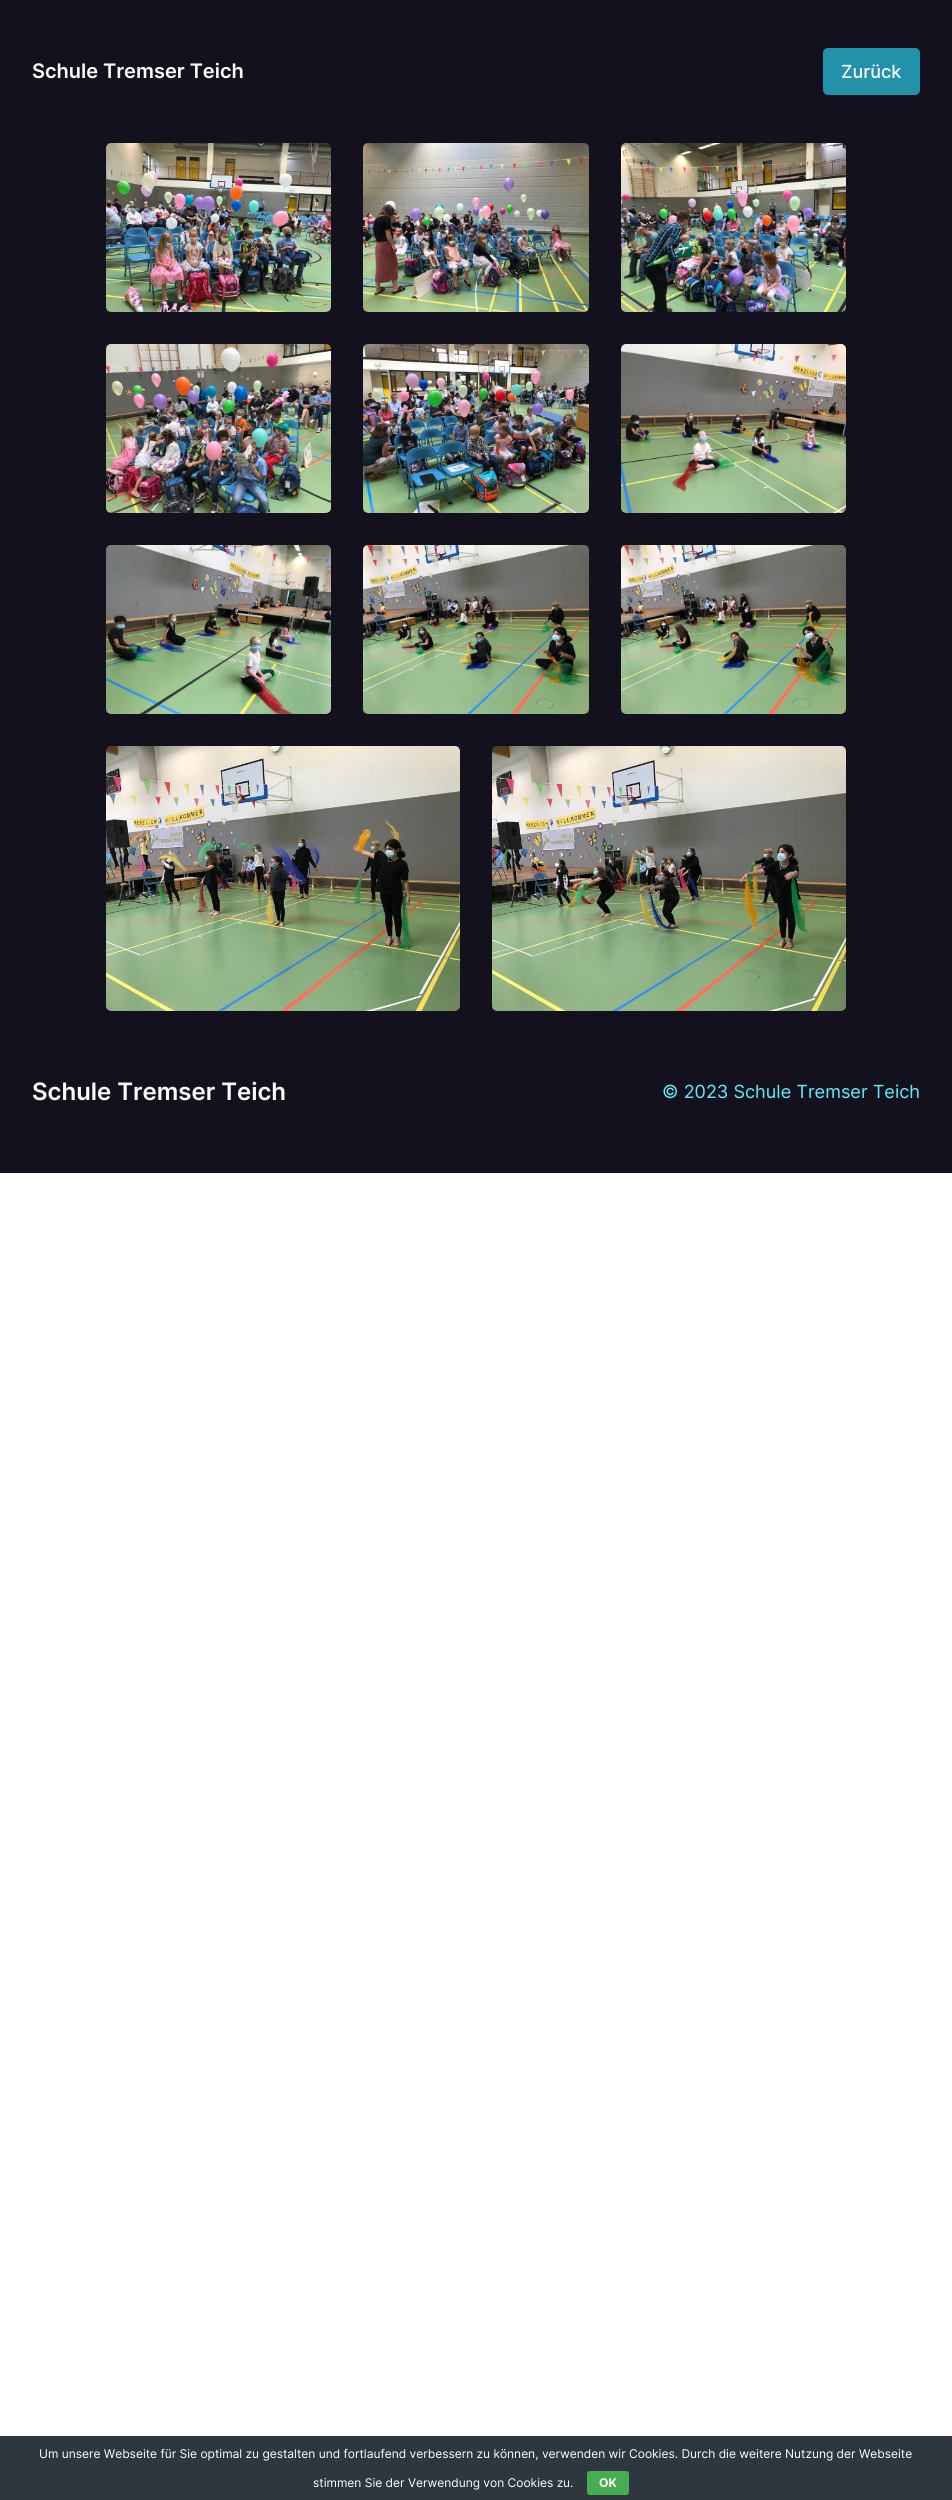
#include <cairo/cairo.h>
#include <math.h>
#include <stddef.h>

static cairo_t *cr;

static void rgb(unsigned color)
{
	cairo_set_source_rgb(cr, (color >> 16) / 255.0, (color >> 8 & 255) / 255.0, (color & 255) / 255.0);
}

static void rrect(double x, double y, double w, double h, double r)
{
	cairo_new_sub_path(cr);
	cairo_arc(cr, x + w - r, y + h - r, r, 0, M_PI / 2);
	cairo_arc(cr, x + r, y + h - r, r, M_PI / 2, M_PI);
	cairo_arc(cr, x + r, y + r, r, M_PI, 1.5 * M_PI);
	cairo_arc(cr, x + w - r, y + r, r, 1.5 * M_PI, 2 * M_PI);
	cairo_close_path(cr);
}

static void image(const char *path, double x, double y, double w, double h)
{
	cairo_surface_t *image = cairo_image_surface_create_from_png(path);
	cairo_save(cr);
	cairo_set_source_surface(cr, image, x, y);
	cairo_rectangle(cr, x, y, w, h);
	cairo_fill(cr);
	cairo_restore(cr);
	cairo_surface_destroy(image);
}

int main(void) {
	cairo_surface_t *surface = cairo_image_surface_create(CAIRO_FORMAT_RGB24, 952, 2500);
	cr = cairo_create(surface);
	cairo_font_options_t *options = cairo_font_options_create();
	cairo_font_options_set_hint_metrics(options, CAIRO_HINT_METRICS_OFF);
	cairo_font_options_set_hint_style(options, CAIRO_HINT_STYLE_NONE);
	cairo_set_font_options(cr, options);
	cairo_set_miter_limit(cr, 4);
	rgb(0xffffff);
	cairo_paint(cr);
	rgb(0x14111f);
	cairo_rectangle(cr, 0, 0, 952, 1173);
	cairo_fill(cr);
	rgb(0x2292ab);
	rrect(823, 48, 97, 47, 5);
	cairo_fill(cr);
	image("img/1.png", 106, 143, 225, 169);
	image("img/2.png", 363, 143, 226, 169);
	image("img/3.png", 621, 143, 225, 169);
	image("img/4.png", 106, 344, 225, 169);
	image("img/5.png", 363, 344, 226, 169);
	image("img/6.png", 621, 344, 225, 169);
	image("img/7.png", 106, 545, 225, 169);
	image("img/8.png", 363, 545, 226, 169);
	image("img/9.png", 621, 545, 225, 169);
	image("img/10.png", 106, 746, 354, 265);
	image("img/11.png", 492, 746, 354, 265);
	rgb(0x2e363f);
	cairo_rectangle(cr, 0, 2436, 952, 64);
	cairo_fill(cr);
	rgb(0x45ae52);
	rrect(587, 2471, 42, 24, 3);
	cairo_fill(cr);
	cairo_select_font_face(cr, "Inter SemiBold", CAIRO_FONT_SLANT_NORMAL, CAIRO_FONT_WEIGHT_NORMAL);
	cairo_set_font_size(cr, 20);
	rgb(0xffffff);
	cairo_move_to(cr, 32, 78);
	cairo_show_text(cr, "Schule Tremser Teich");
	cairo_select_font_face(cr, "Inter Medium", CAIRO_FONT_SLANT_NORMAL, CAIRO_FONT_WEIGHT_NORMAL);
	cairo_set_font_size(cr, 18.1);
	cairo_move_to(cr, 841, 78);
	cairo_show_text(cr, "Zurück");
	cairo_select_font_face(cr, "Inter SemiBold", CAIRO_FONT_SLANT_NORMAL, CAIRO_FONT_WEIGHT_NORMAL);
	cairo_set_font_size(cr, 24);
	cairo_move_to(cr, 32, 1100);
	cairo_show_text(cr, "Schule Tremser Teich");
	cairo_select_font_face(cr, "Inter", CAIRO_FONT_SLANT_NORMAL, CAIRO_FONT_WEIGHT_NORMAL);
	cairo_set_font_size(cr, 18.1);
	rgb(0x5ceff9);
	cairo_move_to(cr, 662, 1098);
	cairo_show_text(cr, "© 2023 Schule Tremser Teich");
	cairo_set_font_size(cr, 12);
	rgb(0xffffff);
	cairo_move_to(cr, 39, 2458);
	cairo_show_text(cr, "Um unsere Webseite für Sie optimal zu gestalten und fortlaufend verbessern zu können, verwenden wir Cookies. Durch die weitere Nutzung der Webseite");
	cairo_move_to(cr, 313, 2487);
	cairo_show_text(cr, "stimmen Sie der Verwendung von Cookies zu.");
	cairo_select_font_face(cr, "Inter", CAIRO_FONT_SLANT_NORMAL, CAIRO_FONT_WEIGHT_BOLD);
	cairo_move_to(cr, 599, 2487);
	cairo_show_text(cr, "OK");
	cairo_surface_write_to_png(surface, "page.png");
	cairo_font_options_destroy(options);
	cairo_destroy(cr);
	cairo_surface_destroy(surface);
	return 0;
}
